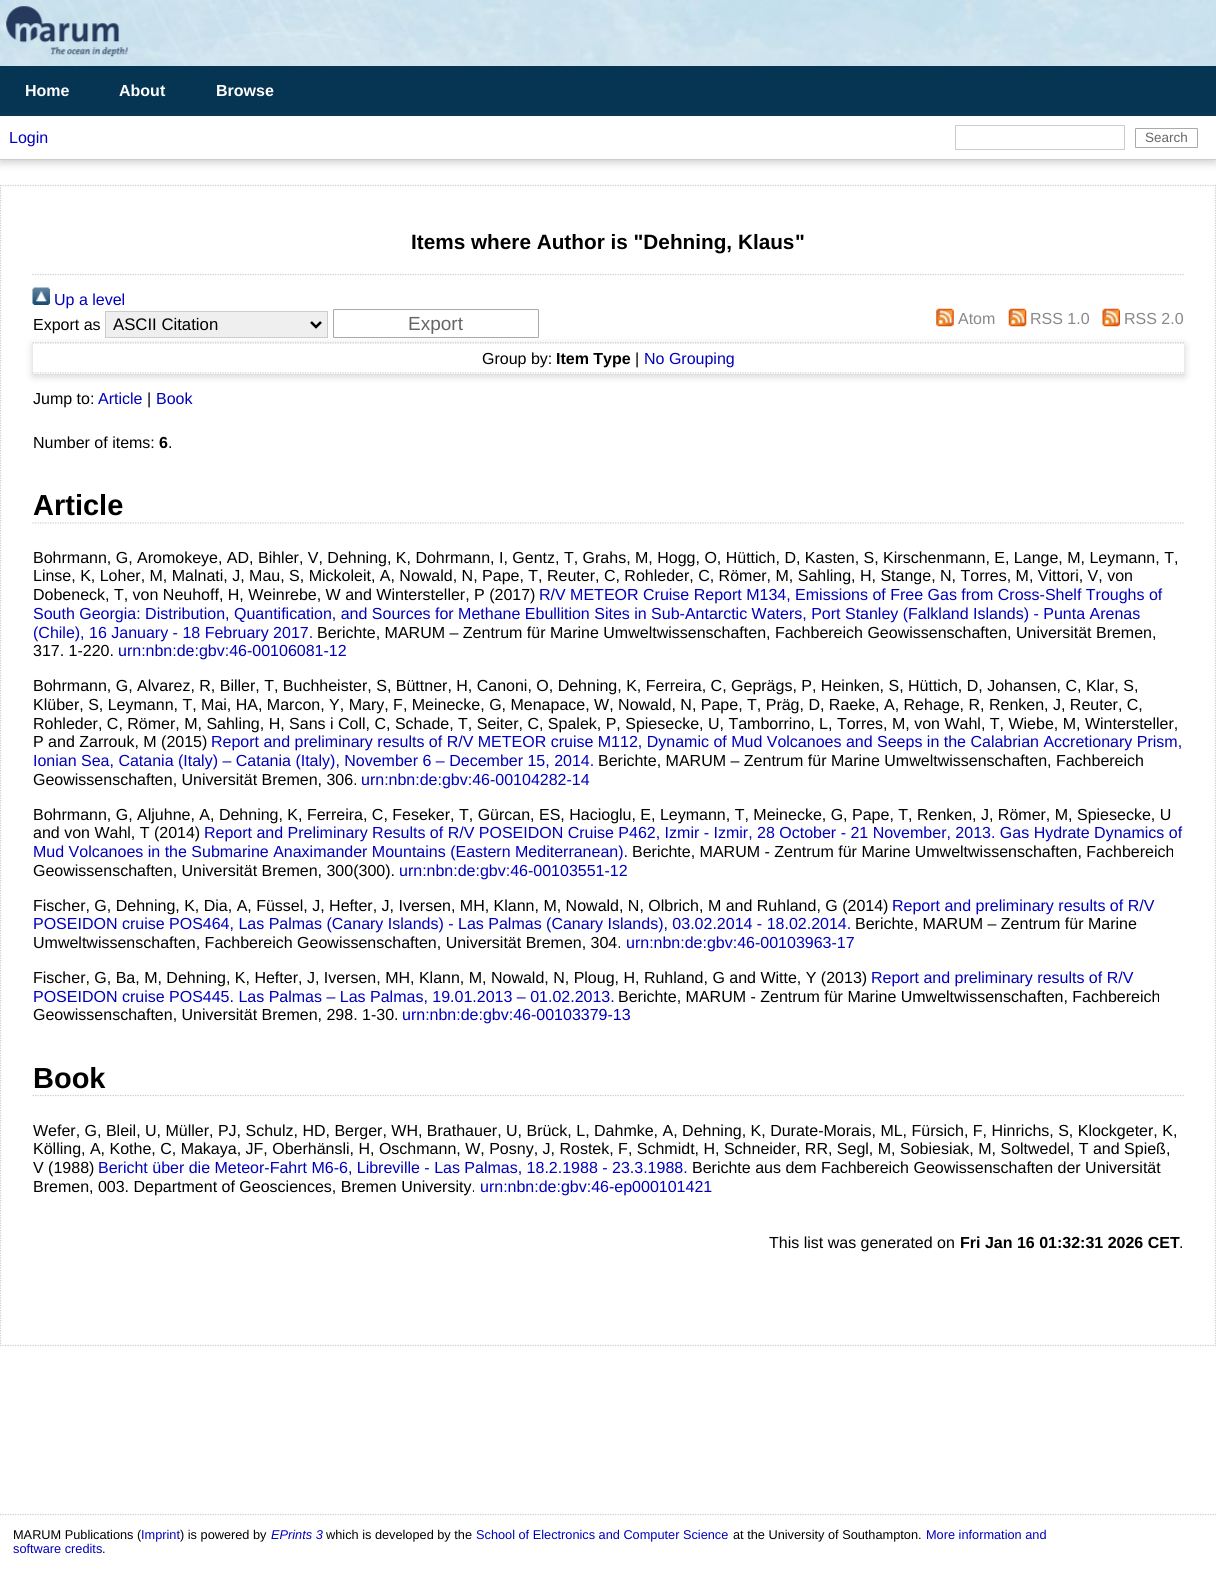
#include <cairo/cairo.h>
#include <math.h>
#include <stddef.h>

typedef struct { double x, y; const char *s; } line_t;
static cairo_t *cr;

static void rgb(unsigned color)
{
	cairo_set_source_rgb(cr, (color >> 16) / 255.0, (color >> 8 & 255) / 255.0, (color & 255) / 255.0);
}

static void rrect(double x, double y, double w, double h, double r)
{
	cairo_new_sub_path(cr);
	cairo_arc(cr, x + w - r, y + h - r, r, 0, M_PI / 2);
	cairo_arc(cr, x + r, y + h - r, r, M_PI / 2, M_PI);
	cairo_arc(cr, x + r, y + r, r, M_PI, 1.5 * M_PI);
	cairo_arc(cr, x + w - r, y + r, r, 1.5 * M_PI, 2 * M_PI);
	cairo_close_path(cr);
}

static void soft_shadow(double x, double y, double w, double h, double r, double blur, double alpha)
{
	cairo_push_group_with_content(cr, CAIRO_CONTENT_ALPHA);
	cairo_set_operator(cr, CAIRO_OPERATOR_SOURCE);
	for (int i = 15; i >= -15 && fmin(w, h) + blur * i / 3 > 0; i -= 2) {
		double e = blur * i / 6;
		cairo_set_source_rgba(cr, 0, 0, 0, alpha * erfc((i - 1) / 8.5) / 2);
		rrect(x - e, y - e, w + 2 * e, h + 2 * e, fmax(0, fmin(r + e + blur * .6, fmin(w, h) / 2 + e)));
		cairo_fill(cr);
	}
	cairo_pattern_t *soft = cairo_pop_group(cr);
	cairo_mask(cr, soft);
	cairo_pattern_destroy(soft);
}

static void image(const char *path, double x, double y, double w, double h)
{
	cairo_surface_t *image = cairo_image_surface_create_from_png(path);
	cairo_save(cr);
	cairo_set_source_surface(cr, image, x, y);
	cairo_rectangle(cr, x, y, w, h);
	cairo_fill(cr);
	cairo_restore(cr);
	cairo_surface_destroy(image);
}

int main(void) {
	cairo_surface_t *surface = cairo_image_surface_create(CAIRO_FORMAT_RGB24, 1216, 1570);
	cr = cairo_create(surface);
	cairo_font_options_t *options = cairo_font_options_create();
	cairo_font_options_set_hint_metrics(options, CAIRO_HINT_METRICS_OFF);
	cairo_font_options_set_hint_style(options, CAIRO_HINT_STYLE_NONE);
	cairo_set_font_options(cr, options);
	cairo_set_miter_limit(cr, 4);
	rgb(0xffffff);
	cairo_paint(cr);
	image("img/1.png", 0, 0, 1216, 66);
	image("img/2.png", 6, 6, 122, 51);
	rgb(0x063554);
	cairo_rectangle(cr, 0, 66, 1216, 50);
	cairo_fill(cr);
	rgb(0x646464);
	soft_shadow(0, 119, 1216, 44, 0, 4, 0.3);
	rgb(0xffffff);
	cairo_rectangle(cr, 0, 116, 1216, 43);
	cairo_fill(cr);
	rgb(0xcccccc);
	cairo_rectangle(cr, 0, 159, 1216, 1);
	cairo_fill(cr);
	cairo_rectangle(cr, 955.5, 125.5, 169, 24);
	cairo_set_line_width(cr, 1);
	cairo_stroke(cr);
	rrect(1135.5, 128.5, 62, 19, 0.5);
	rgb(0xaaaaaa);
	cairo_stroke(cr);
	cairo_new_path(cr);
	cairo_move_to(cr, 0, 185.5);
	cairo_line_to(cr, 1216, 185.5);
	rgb(0xcccccc);
	cairo_set_line_width(cr, 1.2);
	cairo_set_dash(cr, (double[]){1.25, 1.25}, 2, 0);
	cairo_stroke(cr);
	cairo_new_path(cr);
	cairo_move_to(cr, 1215.5, 185);
	cairo_line_to(cr, 1215.5, 1346);
	cairo_stroke(cr);
	cairo_new_path(cr);
	cairo_move_to(cr, 0, 1345.5);
	cairo_line_to(cr, 1216, 1345.5);
	cairo_stroke(cr);
	cairo_new_path(cr);
	cairo_move_to(cr, 0.5, 185);
	cairo_line_to(cr, 0.5, 1346);
	cairo_stroke(cr);
	cairo_new_path(cr);
	cairo_move_to(cr, 32.5, 274.5);
	cairo_line_to(cr, 1184, 274.5);
	cairo_stroke(cr);
	image("img/3.png", 32, 287, 18, 18);
	rgb(0x646464);
	soft_shadow(33, 345, 1151, 31, 0, 4, 0.3);
	rgb(0xefefef);
	cairo_rectangle(cr, 105.5, 311.5, 222, 26);
	cairo_fill_preserve(cr);
	rgb(0xcccccc);
	cairo_set_line_width(cr, 1);
	cairo_set_dash(cr, NULL, 0, 0);
	cairo_stroke(cr);
	cairo_new_path(cr);
	cairo_move_to(cr, 311, 322);
	cairo_line_to(cr, 316, 327);
	cairo_line_to(cr, 321, 322);
	rgb(0x000000);
	cairo_set_line_width(cr, 2.5);
	cairo_stroke(cr);
	rrect(333.5, 309.5, 205, 28, 0.5);
	rgb(0xaaaaaa);
	cairo_set_line_width(cr, 1);
	cairo_stroke(cr);
	image("img/4.png", 936, 308, 18, 19);
	image("img/5.png", 1008, 308, 19, 19);
	image("img/6.png", 1102, 308, 18, 19);
	rgb(0xffffff);
	cairo_rectangle(cr, 33, 343, 1151, 31);
	cairo_fill(cr);
	cairo_new_path(cr);
	cairo_move_to(cr, 32.5, 343);
	cairo_line_to(cr, 1184, 343);
	rgb(0xcccccc);
	cairo_set_line_width(cr, 1.2);
	cairo_set_dash(cr, (double[]){1.25, 1.25}, 2, 0);
	cairo_stroke(cr);
	cairo_new_path(cr);
	cairo_move_to(cr, 32.5, 373);
	cairo_line_to(cr, 1184, 373);
	cairo_stroke(cr);
	cairo_new_path(cr);
	cairo_move_to(cr, 32.5, 523);
	cairo_line_to(cr, 1184, 523);
	cairo_stroke(cr);
	cairo_new_path(cr);
	cairo_move_to(cr, 32.5, 1095.5);
	cairo_line_to(cr, 1184, 1095.5);
	cairo_stroke(cr);
	cairo_new_path(cr);
	cairo_move_to(cr, 0, 1514.5);
	cairo_line_to(cr, 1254, 1514.5);
	cairo_stroke(cr);
	cairo_select_font_face(cr, "Liberation Sans", CAIRO_FONT_SLANT_NORMAL, CAIRO_FONT_WEIGHT_BOLD);
	cairo_set_font_size(cr, 16);
	rgb(0xffffff);
	{
		static const line_t items[] = {
			{25, 96, "Home"},
			{119, 96, "About"},
			{216, 96, "Browse"},
		};
		for (size_t i = 0; i < sizeof items / sizeof *items; i++) {
			cairo_move_to(cr, items[i].x, items[i].y);
			cairo_show_text(cr, items[i].s);
		}
	}
	cairo_select_font_face(cr, "Liberation Sans", CAIRO_FONT_SLANT_NORMAL, CAIRO_FONT_WEIGHT_NORMAL);
	rgb(0x0000bb);
	cairo_move_to(cr, 9, 143);
	cairo_show_text(cr, "Login");
	cairo_set_font_size(cr, 13.5);
	rgb(0x666666);
	cairo_move_to(cr, 1145, 142);
	cairo_show_text(cr, "Search");
	cairo_select_font_face(cr, "Liberation Sans", CAIRO_FONT_SLANT_NORMAL, CAIRO_FONT_WEIGHT_BOLD);
	cairo_set_font_size(cr, 20.75);
	rgb(0x000000);
	cairo_move_to(cr, 411, 249);
	cairo_show_text(cr, "Items where Author is \"Dehning, Klaus");
	cairo_move_to(cr, 795, 249);
	cairo_show_text(cr, "\"");
	cairo_select_font_face(cr, "Liberation Sans", CAIRO_FONT_SLANT_NORMAL, CAIRO_FONT_WEIGHT_NORMAL);
	cairo_set_font_size(cr, 16);
	rgb(0x0000bb);
	cairo_move_to(cr, 54, 305);
	cairo_show_text(cr, "Up a level");
	rgb(0x000000);
	cairo_move_to(cr, 33, 330);
	cairo_show_text(cr, "Export as");
	cairo_set_font_size(cr, 16.75);
	cairo_move_to(cr, 113, 330);
	cairo_show_text(cr, "ASCII Citation");
	cairo_set_font_size(cr, 19);
	rgb(0x666666);
	cairo_move_to(cr, 408, 330);
	cairo_show_text(cr, "Export");
	cairo_set_font_size(cr, 16);
	rgb(0x888888);
	{
		static const line_t items[] = {
			{958, 324, "Atom"},
			{1030, 324, "RSS 1.0"},
			{1124, 324, "RSS 2.0"},
		};
		for (size_t i = 0; i < sizeof items / sizeof *items; i++) {
			cairo_move_to(cr, items[i].x, items[i].y);
			cairo_show_text(cr, items[i].s);
		}
	}
	rgb(0x000000);
	cairo_move_to(cr, 482, 364);
	cairo_show_text(cr, "Group by:");
	cairo_select_font_face(cr, "Liberation Sans", CAIRO_FONT_SLANT_NORMAL, CAIRO_FONT_WEIGHT_BOLD);
	cairo_move_to(cr, 556, 364);
	cairo_show_text(cr, "Item Type");
	cairo_select_font_face(cr, "Liberation Sans", CAIRO_FONT_SLANT_NORMAL, CAIRO_FONT_WEIGHT_NORMAL);
	cairo_move_to(cr, 635, 364);
	cairo_show_text(cr, "|");
	rgb(0x0000bb);
	cairo_move_to(cr, 644, 364);
	cairo_show_text(cr, "No Grouping");
	rgb(0x000000);
	cairo_move_to(cr, 33, 404);
	cairo_show_text(cr, "Jump to:");
	rgb(0x0000bb);
	cairo_move_to(cr, 98, 404);
	cairo_show_text(cr, "Article");
	rgb(0x000000);
	cairo_move_to(cr, 147, 404);
	cairo_show_text(cr, "|");
	rgb(0x0000bb);
	cairo_move_to(cr, 156, 404);
	cairo_show_text(cr, "Book");
	rgb(0x000000);
	cairo_move_to(cr, 33, 448);
	cairo_show_text(cr, "Number of items:");
	cairo_select_font_face(cr, "Liberation Sans", CAIRO_FONT_SLANT_NORMAL, CAIRO_FONT_WEIGHT_BOLD);
	cairo_move_to(cr, 159, 448);
	cairo_show_text(cr, "6");
	cairo_select_font_face(cr, "Liberation Sans", CAIRO_FONT_SLANT_NORMAL, CAIRO_FONT_WEIGHT_NORMAL);
	cairo_move_to(cr, 168, 448);
	cairo_show_text(cr, ".");
	cairo_select_font_face(cr, "Liberation Sans", CAIRO_FONT_SLANT_NORMAL, CAIRO_FONT_WEIGHT_BOLD);
	cairo_set_font_size(cr, 29);
	cairo_move_to(cr, 33, 515);
	cairo_show_text(cr, "Article");
	cairo_select_font_face(cr, "Liberation Sans", CAIRO_FONT_SLANT_NORMAL, CAIRO_FONT_WEIGHT_NORMAL);
	cairo_set_font_size(cr, 16);
	{
		static const line_t items[] = {
			{33, 563, "Bohrmann, G, Aromokeye, AD, Bihler, V, Dehning, K, Dohrmann, I, Gentz, T, Grahs, M, Hogg, O, Hüttich, D, Kasten, S, Kirschenmann, E, Lange, M, Leymann, T,"},
			{33, 581, "Linse, K, Loher, M, Malnati, J, Mau, S, Mickoleit, A, Nowald, N, Pape, T, Reuter, C, Rohleder, C, Römer, M, Sahling, H, Stange, N, Torres, M, Vittori, V, von"},
			{33, 600, "Dobeneck, T, von Neuhoff, H, Weinrebe, W and Wintersteller, P (2017)"},
		};
		for (size_t i = 0; i < sizeof items / sizeof *items; i++) {
			cairo_move_to(cr, items[i].x, items[i].y);
			cairo_show_text(cr, items[i].s);
		}
	}
	rgb(0x0000bb);
	{
		static const line_t items[] = {
			{539, 600, "R/V METEOR Cruise Report M134, Emissions of Free Gas from Cross-Shelf Troughs of"},
			{33, 619, "South Georgia: Distribution, Quantification, and Sources for Methane Ebullition Sites in Sub-Antarctic Waters, Port Stanley (Falkland Islands) - Punta Arenas"},
			{33, 638, "(Chile), 16 January - 18 February 2017."},
		};
		for (size_t i = 0; i < sizeof items / sizeof *items; i++) {
			cairo_move_to(cr, items[i].x, items[i].y);
			cairo_show_text(cr, items[i].s);
		}
	}
	rgb(0x000000);
	cairo_move_to(cr, 317, 638);
	cairo_show_text(cr, "Berichte, MARUM – Zentrum für Marine Umweltwissenschaften, Fachbereich Geowissenschaften, Universität Bremen,");
	cairo_move_to(cr, 33, 656);
	cairo_show_text(cr, "317. 1-220.");
	rgb(0x0000bb);
	cairo_move_to(cr, 118, 656);
	cairo_show_text(cr, "urn:nbn:de:gbv:46-00106081-12");
	rgb(0x000000);
	{
		static const line_t items[] = {
			{33, 691, "Bohrmann, G, Alvarez, R, Biller, T, Buchheister, S, Büttner, H, Canoni, O, Dehning, K, Ferreira, C, Geprägs, P, Heinken, S, Hüttich, D, Johansen, C, Klar, S,"},
			{33, 710, "Klüber, S, Leymann, T, Mai, HA, Marcon, Y, Mary, F, Meinecke, G, Menapace, W, Nowald, N, Pape, T, Präg, D, Raeke, A, Rehage, R, Renken, J, Reuter, C,"},
			{33, 729, "Rohleder, C, Römer, M, Sahling, H, Sans i Coll, C, Schade, T, Seiter, C, Spalek, P, Spiesecke, U, Tamborrino, L, Torres, M, von Wahl, T, Wiebe, M, Wintersteller,"},
			{33, 747, "P and Zarrouk, M (2015)"},
		};
		for (size_t i = 0; i < sizeof items / sizeof *items; i++) {
			cairo_move_to(cr, items[i].x, items[i].y);
			cairo_show_text(cr, items[i].s);
		}
	}
	rgb(0x0000bb);
	cairo_move_to(cr, 211, 747);
	cairo_show_text(cr, "Report and preliminary results of R/V METEOR cruise M112, Dynamic of Mud Volcanoes and Seeps in the Calabrian Accretionary Prism,");
	cairo_move_to(cr, 33, 766);
	cairo_show_text(cr, "Ionian Sea, Catania (Italy) – Catania (Italy), November 6 – December 15, 2014.");
	rgb(0x000000);
	cairo_move_to(cr, 598, 766);
	cairo_show_text(cr, "Berichte, MARUM – Zentrum für Marine Umweltwissenschaften, Fachbereich");
	cairo_move_to(cr, 33, 785);
	cairo_show_text(cr, "Geowissenschaften, Universität Bremen, 306.");
	rgb(0x0000bb);
	cairo_move_to(cr, 361, 785);
	cairo_show_text(cr, "urn:nbn:de:gbv:46-00104282-14");
	rgb(0x000000);
	cairo_move_to(cr, 33, 820);
	cairo_show_text(cr, "Bohrmann, G, Aljuhne, A, Dehning, K, Ferreira, C, Feseker, T, Gürcan, ES, Hacioglu, E, Leymann, T, Meinecke, G, Pape, T, Renken, J, Römer, M, Spiesecke, U");
	cairo_move_to(cr, 33, 838);
	cairo_show_text(cr, "and von Wahl, T (2014)");
	rgb(0x0000bb);
	cairo_move_to(cr, 204, 838);
	cairo_show_text(cr, "Report and Preliminary Results of R/V POSEIDON Cruise P462, Izmir - Izmir, 28 October - 21 November, 2013. Gas Hydrate Dynamics of");
	cairo_move_to(cr, 33, 857);
	cairo_show_text(cr, "Mud Volcanoes in the Submarine Anaximander Mountains (Eastern Mediterranean).");
	rgb(0x000000);
	cairo_move_to(cr, 632, 857);
	cairo_show_text(cr, "Berichte, MARUM - Zentrum für Marine Umweltwissenschaften, Fachbereich");
	cairo_move_to(cr, 33, 876);
	cairo_show_text(cr, "Geowissenschaften, Universität Bremen, 300(300).");
	rgb(0x0000bb);
	cairo_move_to(cr, 399, 876);
	cairo_show_text(cr, "urn:nbn:de:gbv:46-00103551-12");
	rgb(0x000000);
	cairo_move_to(cr, 33, 911);
	cairo_show_text(cr, "Fischer, G, Dehning, K, Dia, A, Füssel, J, Hefter, J, Iversen, MH, Klann, M, Nowald, N, Olbrich, M and Ruhland, G (2014)");
	rgb(0x0000bb);
	cairo_move_to(cr, 892, 911);
	cairo_show_text(cr, "Report and preliminary results of R/V");
	cairo_move_to(cr, 33, 929);
	cairo_show_text(cr, "POSEIDON cruise POS464, Las Palmas (Canary Islands) - Las Palmas (Canary Islands), 03.02.2014 - 18.02.2014.");
	rgb(0x000000);
	cairo_move_to(cr, 855, 929);
	cairo_show_text(cr, "Berichte, MARUM – Zentrum für Marine");
	cairo_move_to(cr, 33, 948);
	cairo_show_text(cr, "Umweltwissenschaften, Fachbereich Geowissenschaften, Universität Bremen, 304.");
	rgb(0x0000bb);
	cairo_move_to(cr, 626, 948);
	cairo_show_text(cr, "urn:nbn:de:gbv:46-00103963-17");
	rgb(0x000000);
	cairo_move_to(cr, 33, 983);
	cairo_show_text(cr, "Fischer, G, Ba, M, Dehning, K, Hefter, J, Iversen, MH, Klann, M, Nowald, N, Ploug, H, Ruhland, G and Witte, Y (2013)");
	rgb(0x0000bb);
	cairo_move_to(cr, 871, 983);
	cairo_show_text(cr, "Report and preliminary results of R/V");
	cairo_move_to(cr, 33, 1002);
	cairo_show_text(cr, "POSEIDON cruise POS445. Las Palmas – Las Palmas, 19.01.2013 – 01.02.2013.");
	rgb(0x000000);
	cairo_move_to(cr, 618, 1002);
	cairo_show_text(cr, "Berichte, MARUM - Zentrum für Marine Umweltwissenschaften, Fachbereich");
	cairo_move_to(cr, 33, 1020);
	cairo_show_text(cr, "Geowissenschaften, Universität Bremen, 298. 1-30.");
	rgb(0x0000bb);
	cairo_move_to(cr, 402, 1020);
	cairo_show_text(cr, "urn:nbn:de:gbv:46-00103379-13");
	cairo_select_font_face(cr, "Liberation Sans", CAIRO_FONT_SLANT_NORMAL, CAIRO_FONT_WEIGHT_BOLD);
	cairo_set_font_size(cr, 29);
	rgb(0x000000);
	cairo_move_to(cr, 33, 1088);
	cairo_show_text(cr, "Book");
	cairo_select_font_face(cr, "Liberation Sans", CAIRO_FONT_SLANT_NORMAL, CAIRO_FONT_WEIGHT_NORMAL);
	cairo_set_font_size(cr, 16);
	{
		static const line_t items[] = {
			{33, 1136, "Wefer, G, Bleil, U, Müller, PJ, Schulz, HD, Berger, WH, Brathauer, U, Brück, L, Dahmke, A, Dehning, K, Durate-Morais, ML, Fürsich, F, Hinrichs, S, Klockgeter, K,"},
			{33, 1154, "Kölling, A, Kothe, C, Makaya, JF, Oberhänsli, H, Oschmann, W, Posny, J, Rostek, F, Schmidt, H, Schneider, RR, Segl, M, Sobiesiak, M, Soltwedel, T and Spieß,"},
			{33, 1173, "V (1988)"},
		};
		for (size_t i = 0; i < sizeof items / sizeof *items; i++) {
			cairo_move_to(cr, items[i].x, items[i].y);
			cairo_show_text(cr, items[i].s);
		}
	}
	rgb(0x0000bb);
	cairo_move_to(cr, 98, 1173);
	cairo_show_text(cr, "Bericht über die Meteor-Fahrt M6-6, Libreville - Las Palmas, 18.2.1988 - 23.3.1988.");
	rgb(0x000000);
	cairo_move_to(cr, 692, 1173);
	cairo_show_text(cr, "Berichte aus dem Fachbereich Geowissenschaften der Universität");
	cairo_move_to(cr, 33, 1192);
	cairo_show_text(cr, "Bremen, 003. Department of Geosciences, Bremen University.");
	rgb(0x0000bb);
	cairo_move_to(cr, 480, 1192);
	cairo_show_text(cr, "urn:nbn:de:gbv:46-ep000101421");
	rgb(0x000000);
	cairo_move_to(cr, 769, 1248);
	cairo_show_text(cr, "This list was generated on");
	cairo_select_font_face(cr, "Liberation Sans", CAIRO_FONT_SLANT_NORMAL, CAIRO_FONT_WEIGHT_BOLD);
	cairo_move_to(cr, 960, 1248);
	cairo_show_text(cr, "Fri Jan 16 01:32:31 2026 CET");
	cairo_select_font_face(cr, "Liberation Sans", CAIRO_FONT_SLANT_NORMAL, CAIRO_FONT_WEIGHT_NORMAL);
	cairo_move_to(cr, 1179, 1248);
	cairo_show_text(cr, ".");
	cairo_set_font_size(cr, 12.75);
	cairo_move_to(cr, 13, 1539);
	cairo_show_text(cr, "MARUM Publications (");
	rgb(0x0000bb);
	cairo_move_to(cr, 141, 1539);
	cairo_show_text(cr, "Imprint");
	rgb(0x000000);
	cairo_move_to(cr, 180, 1539);
	cairo_show_text(cr, ") is powered by");
	cairo_select_font_face(cr, "Liberation Sans", CAIRO_FONT_SLANT_ITALIC, CAIRO_FONT_WEIGHT_NORMAL);
	rgb(0x0000bb);
	cairo_move_to(cr, 271, 1539);
	cairo_show_text(cr, "EPrints 3");
	cairo_select_font_face(cr, "Liberation Sans", CAIRO_FONT_SLANT_NORMAL, CAIRO_FONT_WEIGHT_NORMAL);
	rgb(0x000000);
	cairo_move_to(cr, 326, 1539);
	cairo_show_text(cr, "which is developed by the");
	rgb(0x0000bb);
	cairo_move_to(cr, 476, 1539);
	cairo_show_text(cr, "School of Electronics and Computer Science");
	rgb(0x000000);
	cairo_move_to(cr, 733, 1539);
	cairo_show_text(cr, "at the University of Southampton.");
	rgb(0x0000bb);
	cairo_move_to(cr, 926, 1539);
	cairo_show_text(cr, "More information and");
	cairo_move_to(cr, 13, 1553);
	cairo_show_text(cr, "software credits");
	rgb(0x000000);
	cairo_move_to(cr, 102, 1553);
	cairo_show_text(cr, ".");
	cairo_surface_write_to_png(surface, "page.png");
	cairo_font_options_destroy(options);
	cairo_destroy(cr);
	cairo_surface_destroy(surface);
	return 0;
}
